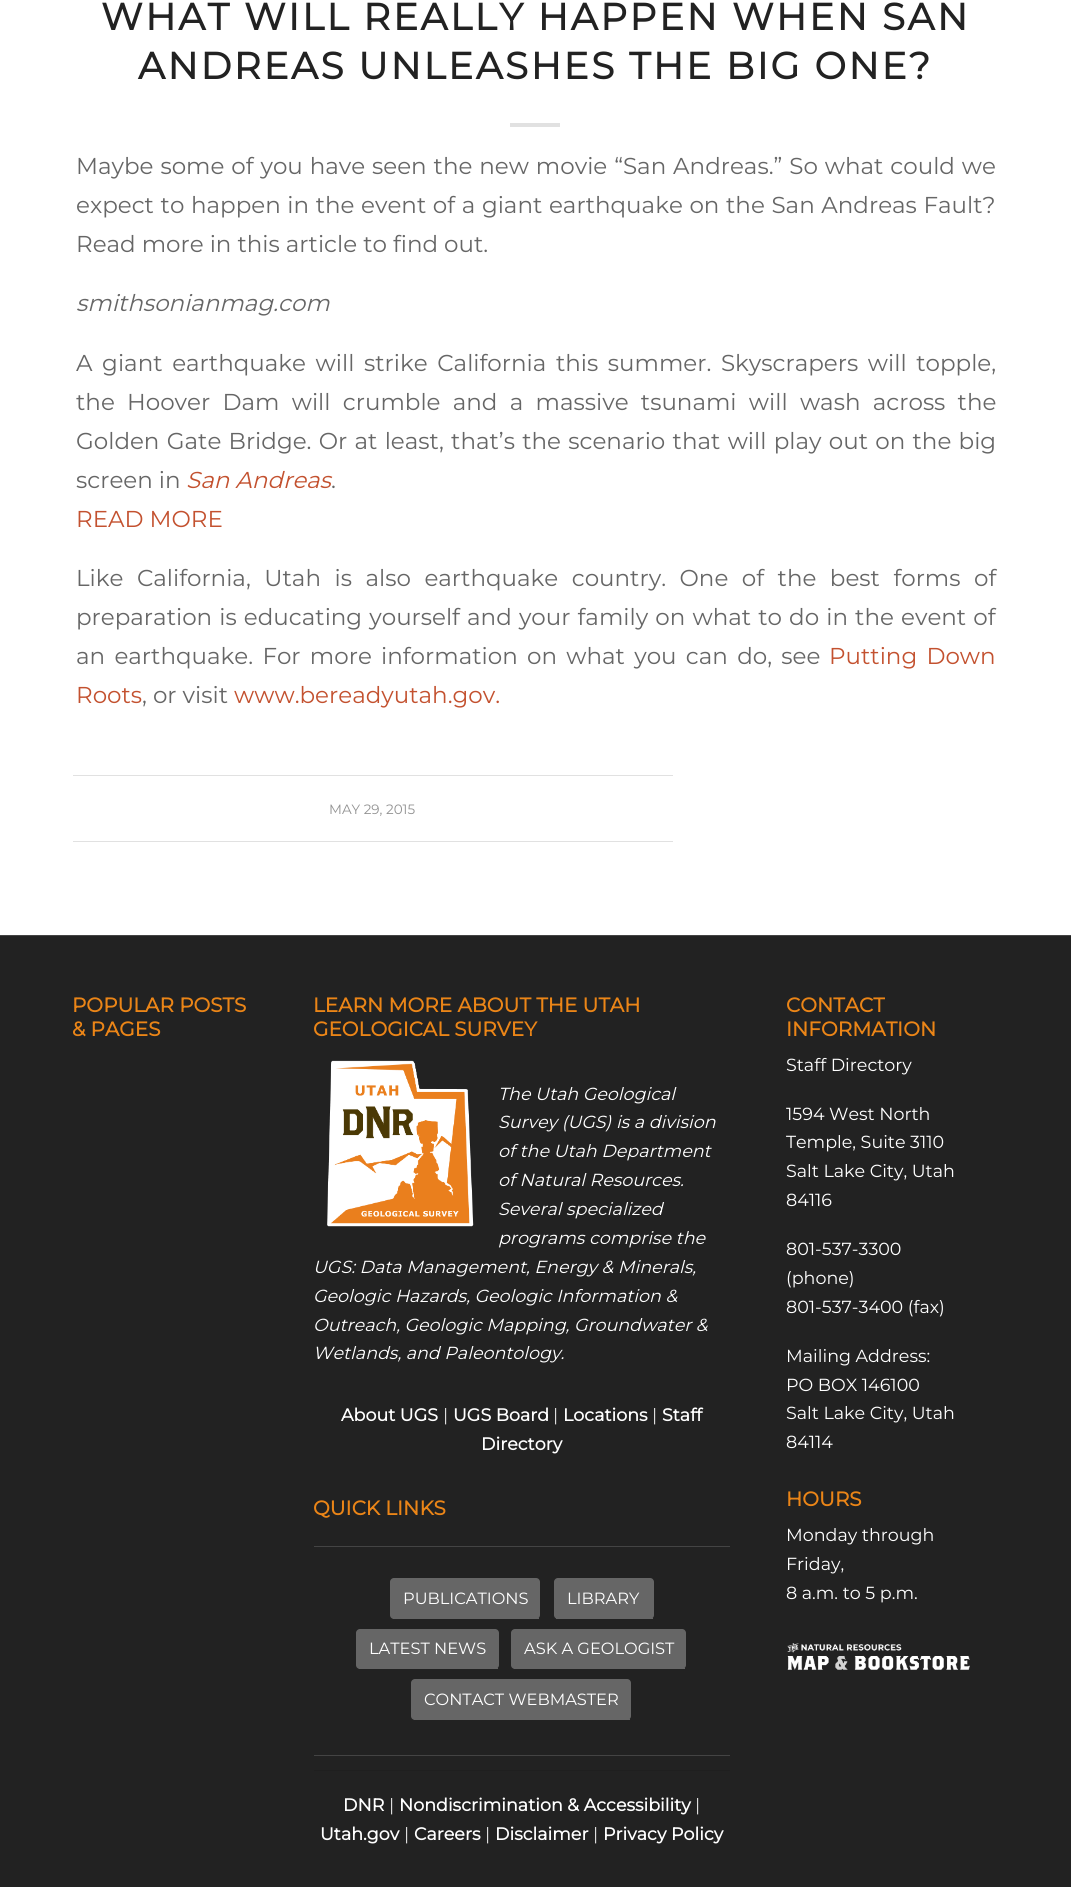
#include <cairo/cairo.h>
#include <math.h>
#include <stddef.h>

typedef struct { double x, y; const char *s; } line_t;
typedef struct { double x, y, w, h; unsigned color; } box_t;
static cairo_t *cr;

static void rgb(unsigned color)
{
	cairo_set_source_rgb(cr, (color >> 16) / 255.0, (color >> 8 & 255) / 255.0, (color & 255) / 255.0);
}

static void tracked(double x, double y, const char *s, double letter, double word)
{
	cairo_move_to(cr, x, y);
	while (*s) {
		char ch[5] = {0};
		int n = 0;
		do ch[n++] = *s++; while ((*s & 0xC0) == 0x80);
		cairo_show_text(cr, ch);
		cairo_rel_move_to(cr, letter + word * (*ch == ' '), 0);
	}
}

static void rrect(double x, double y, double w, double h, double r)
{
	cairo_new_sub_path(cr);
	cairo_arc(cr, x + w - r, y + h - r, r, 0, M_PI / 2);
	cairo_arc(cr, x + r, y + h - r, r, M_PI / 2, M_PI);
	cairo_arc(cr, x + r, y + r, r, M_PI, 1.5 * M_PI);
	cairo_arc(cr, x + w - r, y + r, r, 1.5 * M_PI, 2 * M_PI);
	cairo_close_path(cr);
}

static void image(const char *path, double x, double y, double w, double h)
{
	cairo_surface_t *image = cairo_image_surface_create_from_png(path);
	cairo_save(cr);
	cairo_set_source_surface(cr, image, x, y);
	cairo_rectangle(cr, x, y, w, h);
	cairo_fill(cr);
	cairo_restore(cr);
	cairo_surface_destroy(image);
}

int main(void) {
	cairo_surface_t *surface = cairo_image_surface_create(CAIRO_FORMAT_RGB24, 1071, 1887);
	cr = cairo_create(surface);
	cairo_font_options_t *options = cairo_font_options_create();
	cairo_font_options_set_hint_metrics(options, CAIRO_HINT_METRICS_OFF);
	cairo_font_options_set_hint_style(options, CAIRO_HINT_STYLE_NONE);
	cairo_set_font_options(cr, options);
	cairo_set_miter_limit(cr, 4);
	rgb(0xffffff);
	cairo_paint(cr);
	{
		static const box_t items[] = {
			{510, 123, 50, 4, 0xe1e1e1},
			{73, 775, 600, 1, 0xe1e1e1},
			{73, 841, 600, 1, 0xe1e1e1},
			{0, 936, 1071, 951, 0x222222},
			{0, 935, 1071, 1, 0x444444},
		};
		for (size_t i = 0; i < sizeof items / sizeof *items; i++) {
			rgb(items[i].color);
			cairo_rectangle(cr, items[i].x, items[i].y, items[i].w, items[i].h);
			cairo_fill(cr);
		}
	}
	image("img/1.png", 327, 1060, 147, 167);
	cairo_rectangle(cr, 314, 1546, 416, 1);
	cairo_fill(cr);
	rgb(0x666666);
	rrect(390, 1578, 150, 41, 4);
	cairo_fill(cr);
	cairo_rectangle(cr, 393, 1618, 146, 1);
	cairo_fill(cr);
	rrect(554, 1578, 100, 41, 4);
	cairo_fill(cr);
	cairo_rectangle(cr, 556, 1618, 97, 1);
	cairo_fill(cr);
	rrect(356, 1629, 143, 40, 4);
	cairo_fill(cr);
	cairo_rectangle(cr, 359, 1668, 139, 1);
	cairo_fill(cr);
	rrect(511, 1629, 175, 40, 4);
	cairo_fill(cr);
	cairo_rectangle(cr, 514, 1668, 171, 1);
	cairo_fill(cr);
	rrect(411, 1679, 220, 41, 4);
	cairo_fill(cr);
	{
		static const box_t items[] = {
			{414, 1719, 216, 1, 0x666666},
			{314, 1755, 416, 1, 0x444444},
			{314, 1770, 416, 1, 0x1f1f1f},
		};
		for (size_t i = 0; i < sizeof items / sizeof *items; i++) {
			rgb(items[i].color);
			cairo_rectangle(cr, items[i].x, items[i].y, items[i].w, items[i].h);
			cairo_fill(cr);
		}
	}
	image("img/2.png", 787, 1643, 183, 27);
	cairo_select_font_face(cr, "Montserrat", CAIRO_FONT_SLANT_NORMAL, CAIRO_FONT_WEIGHT_BOLD);
	cairo_set_font_size(cr, 37.5);
	rgb(0x222222);
	tracked(101, 30, "WHAT WILL REALLY HAPPEN WHEN SAN", 2.5, 0);
	tracked(138, 79, "ANDREAS UNLEASHES THE BIG ONE?", 2.5, 0);
	cairo_select_font_face(cr, "Montserrat Thin", CAIRO_FONT_SLANT_NORMAL, CAIRO_FONT_WEIGHT_NORMAL);
	cairo_set_font_size(cr, 23);
	rgb(0x666666);
	tracked(76, 174, "Maybe some of you have seen the new movie “San Andreas.” So what could we", 0, 0.9);
	tracked(76, 213, "expect to happen in the event of a giant earthquake on the San Andreas Fault?", 0, 0.6);
	cairo_move_to(cr, 76, 252);
	cairo_show_text(cr, "Read more in this article to find out.");
	cairo_select_font_face(cr, "Montserrat Thin", CAIRO_FONT_SLANT_ITALIC, CAIRO_FONT_WEIGHT_NORMAL);
	cairo_move_to(cr, 76, 311);
	cairo_show_text(cr, "smithsonianmag.com");
	cairo_select_font_face(cr, "Montserrat Thin", CAIRO_FONT_SLANT_NORMAL, CAIRO_FONT_WEIGHT_NORMAL);
	tracked(76, 371, "A giant earthquake will strike California this summer. Skyscrapers will topple,", 0, 3.6);
	tracked(76, 410, "the Hoover Dam will crumble and a massive tsunami will wash across the", 0, 6.25);
	tracked(76, 449, "Golden Gate Bridge. Or at least, that’s the scenario that will play out on the big", 0, 1.25);
	cairo_move_to(cr, 76, 488);
	cairo_show_text(cr, "screen in");
	cairo_select_font_face(cr, "Montserrat Thin", CAIRO_FONT_SLANT_ITALIC, CAIRO_FONT_WEIGHT_NORMAL);
	rgb(0xc3512f);
	cairo_move_to(cr, 186, 488);
	cairo_show_text(cr, "San Andreas");
	cairo_select_font_face(cr, "Montserrat Thin", CAIRO_FONT_SLANT_NORMAL, CAIRO_FONT_WEIGHT_NORMAL);
	rgb(0x666666);
	cairo_move_to(cr, 331, 488);
	cairo_show_text(cr, ".");
	rgb(0xc3512f);
	cairo_move_to(cr, 76, 527);
	cairo_show_text(cr, "READ MORE");
	rgb(0x666666);
	tracked(76, 586, "Like California, Utah is also earthquake country. One of the best forms of", 0, 7.5);
	tracked(76, 625, "preparation is educating yourself and your family on what to do in the event of", 0, 1.1);
	tracked(76, 664, "an earthquake. For more information on what you can do, see", 0, 3.25);
	rgb(0xc3512f);
	tracked(829, 664, "Putting Down", 0, 3.25);
	cairo_move_to(cr, 76, 703);
	cairo_show_text(cr, "Roots");
	rgb(0x666666);
	cairo_move_to(cr, 142, 703);
	cairo_show_text(cr, ", or visit");
	rgb(0xc3512f);
	cairo_move_to(cr, 234, 703);
	cairo_show_text(cr, "www.bereadyutah.gov.");
	cairo_set_font_size(cr, 13.5);
	rgb(0x919191);
	cairo_move_to(cr, 329, 814);
	cairo_show_text(cr, "MAY 29, 2015");
	cairo_select_font_face(cr, "Montserrat", CAIRO_FONT_SLANT_NORMAL, CAIRO_FONT_WEIGHT_BOLD);
	cairo_set_font_size(cr, 20);
	rgb(0xeb8517);
	{
		static const line_t items[] = {
			{72, 1012, "POPULAR POSTS"},
			{72, 1036, "& PAGES"},
			{313, 1012, "LEARN MORE ABOUT THE UTAH"},
			{313, 1036, "GEOLOGICAL SURVEY"},
		};
		for (size_t i = 0; i < sizeof items / sizeof *items; i++) {
			cairo_move_to(cr, items[i].x, items[i].y);
			cairo_show_text(cr, items[i].s);
		}
	}
	cairo_select_font_face(cr, "Montserrat Thin", CAIRO_FONT_SLANT_ITALIC, CAIRO_FONT_WEIGHT_NORMAL);
	cairo_set_font_size(cr, 17.5);
	rgb(0xffffff);
	{
		static const line_t items[] = {
			{498, 1100, "The Utah Geological"},
			{498, 1128, "Survey (UGS) is a division"},
			{498, 1157, "of the Utah Department"},
			{498, 1186, "of Natural Resources."},
			{498, 1215, "Several specialized"},
			{498, 1244, "programs comprise the"},
			{313, 1273, "UGS: Data Management, Energy & Minerals,"},
			{313, 1302, "Geologic Hazards, Geologic Information &"},
			{313, 1331, "Outreach, Geologic Mapping, Groundwater &"},
			{313, 1359, "Wetlands, and Paleontology."},
		};
		for (size_t i = 0; i < sizeof items / sizeof *items; i++) {
			cairo_move_to(cr, items[i].x, items[i].y);
			cairo_show_text(cr, items[i].s);
		}
	}
	cairo_select_font_face(cr, "Montserrat", CAIRO_FONT_SLANT_NORMAL, CAIRO_FONT_WEIGHT_BOLD);
	cairo_move_to(cr, 341, 1421);
	cairo_show_text(cr, "About UGS");
	cairo_select_font_face(cr, "Montserrat Thin", CAIRO_FONT_SLANT_NORMAL, CAIRO_FONT_WEIGHT_NORMAL);
	rgb(0xdddddd);
	cairo_move_to(cr, 443, 1421);
	cairo_show_text(cr, "|");
	cairo_select_font_face(cr, "Montserrat", CAIRO_FONT_SLANT_NORMAL, CAIRO_FONT_WEIGHT_BOLD);
	rgb(0xffffff);
	cairo_move_to(cr, 453, 1421);
	cairo_show_text(cr, "UGS Board");
	cairo_select_font_face(cr, "Montserrat Thin", CAIRO_FONT_SLANT_NORMAL, CAIRO_FONT_WEIGHT_NORMAL);
	rgb(0xdddddd);
	cairo_move_to(cr, 553, 1421);
	cairo_show_text(cr, "|");
	cairo_select_font_face(cr, "Montserrat", CAIRO_FONT_SLANT_NORMAL, CAIRO_FONT_WEIGHT_BOLD);
	rgb(0xffffff);
	cairo_move_to(cr, 563, 1421);
	cairo_show_text(cr, "Locations");
	cairo_select_font_face(cr, "Montserrat Thin", CAIRO_FONT_SLANT_NORMAL, CAIRO_FONT_WEIGHT_NORMAL);
	rgb(0xdddddd);
	cairo_move_to(cr, 652, 1421);
	cairo_show_text(cr, "|");
	cairo_select_font_face(cr, "Montserrat", CAIRO_FONT_SLANT_NORMAL, CAIRO_FONT_WEIGHT_BOLD);
	rgb(0xffffff);
	cairo_move_to(cr, 662, 1421);
	cairo_show_text(cr, "Staff");
	cairo_move_to(cr, 481, 1450);
	cairo_show_text(cr, "Directory");
	cairo_set_font_size(cr, 20);
	rgb(0xeb8517);
	cairo_move_to(cr, 313, 1515);
	cairo_show_text(cr, "QUICK LINKS");
	cairo_select_font_face(cr, "Montserrat Thin", CAIRO_FONT_SLANT_NORMAL, CAIRO_FONT_WEIGHT_NORMAL);
	cairo_set_font_size(cr, 16.25);
	rgb(0xffffff);
	{
		static const line_t items[] = {
			{403, 1604, "PUBLICATIONS"},
			{567, 1604, "LIBRARY"},
			{369, 1654, "LATEST NEWS"},
			{524, 1654, "ASK A GEOLOGIST"},
			{424, 1705, "CONTACT WEBMASTER"},
		};
		for (size_t i = 0; i < sizeof items / sizeof *items; i++) {
			cairo_move_to(cr, items[i].x, items[i].y);
			cairo_show_text(cr, items[i].s);
		}
	}
	cairo_select_font_face(cr, "Montserrat", CAIRO_FONT_SLANT_NORMAL, CAIRO_FONT_WEIGHT_BOLD);
	cairo_set_font_size(cr, 17.5);
	cairo_move_to(cr, 343, 1811);
	cairo_show_text(cr, "DNR");
	cairo_select_font_face(cr, "Montserrat Thin", CAIRO_FONT_SLANT_NORMAL, CAIRO_FONT_WEIGHT_NORMAL);
	rgb(0xdddddd);
	cairo_move_to(cr, 389, 1811);
	cairo_show_text(cr, "|");
	cairo_select_font_face(cr, "Montserrat", CAIRO_FONT_SLANT_NORMAL, CAIRO_FONT_WEIGHT_BOLD);
	rgb(0xffffff);
	cairo_move_to(cr, 399, 1811);
	cairo_show_text(cr, "Nondiscrimination & Accessibility");
	cairo_select_font_face(cr, "Montserrat Thin", CAIRO_FONT_SLANT_NORMAL, CAIRO_FONT_WEIGHT_NORMAL);
	rgb(0xdddddd);
	cairo_move_to(cr, 695, 1811);
	cairo_show_text(cr, "|");
	cairo_select_font_face(cr, "Montserrat", CAIRO_FONT_SLANT_NORMAL, CAIRO_FONT_WEIGHT_BOLD);
	rgb(0xffffff);
	cairo_move_to(cr, 320, 1840);
	cairo_show_text(cr, "Utah.gov");
	cairo_select_font_face(cr, "Montserrat Thin", CAIRO_FONT_SLANT_NORMAL, CAIRO_FONT_WEIGHT_NORMAL);
	rgb(0xdddddd);
	cairo_move_to(cr, 404, 1840);
	cairo_show_text(cr, "|");
	cairo_select_font_face(cr, "Montserrat", CAIRO_FONT_SLANT_NORMAL, CAIRO_FONT_WEIGHT_BOLD);
	rgb(0xffffff);
	cairo_move_to(cr, 414, 1840);
	cairo_show_text(cr, "Careers");
	cairo_select_font_face(cr, "Montserrat Thin", CAIRO_FONT_SLANT_NORMAL, CAIRO_FONT_WEIGHT_NORMAL);
	rgb(0xdddddd);
	cairo_move_to(cr, 485, 1840);
	cairo_show_text(cr, "|");
	cairo_select_font_face(cr, "Montserrat", CAIRO_FONT_SLANT_NORMAL, CAIRO_FONT_WEIGHT_BOLD);
	rgb(0xffffff);
	cairo_move_to(cr, 495, 1840);
	cairo_show_text(cr, "Disclaimer");
	cairo_select_font_face(cr, "Montserrat Thin", CAIRO_FONT_SLANT_NORMAL, CAIRO_FONT_WEIGHT_NORMAL);
	rgb(0xdddddd);
	cairo_move_to(cr, 593, 1840);
	cairo_show_text(cr, "|");
	cairo_select_font_face(cr, "Montserrat", CAIRO_FONT_SLANT_NORMAL, CAIRO_FONT_WEIGHT_BOLD);
	rgb(0xffffff);
	cairo_move_to(cr, 603, 1840);
	cairo_show_text(cr, "Privacy Policy");
	cairo_set_font_size(cr, 20);
	rgb(0xeb8517);
	cairo_move_to(cr, 786, 1012);
	cairo_show_text(cr, "CONTACT");
	cairo_move_to(cr, 786, 1036);
	cairo_show_text(cr, "INFORMATION");
	cairo_select_font_face(cr, "Montserrat Thin", CAIRO_FONT_SLANT_NORMAL, CAIRO_FONT_WEIGHT_NORMAL);
	cairo_set_font_size(cr, 17.5);
	rgb(0xffffff);
	{
		static const line_t items[] = {
			{786, 1071, "Staff Directory"},
			{786, 1120, "1594 West North"},
			{786, 1148, "Temple, Suite 3110"},
			{786, 1177, "Salt Lake City, Utah"},
			{786, 1206, "84116"},
			{786, 1255, "801-537-3300"},
			{786, 1284, "(phone)"},
			{786, 1313, "801-537-3400 (fax)"},
			{786, 1362, "Mailing Address:"},
			{786, 1391, "PO BOX 146100"},
			{786, 1419, "Salt Lake City, Utah"},
			{786, 1448, "84114"},
		};
		for (size_t i = 0; i < sizeof items / sizeof *items; i++) {
			cairo_move_to(cr, items[i].x, items[i].y);
			cairo_show_text(cr, items[i].s);
		}
	}
	cairo_select_font_face(cr, "Montserrat", CAIRO_FONT_SLANT_NORMAL, CAIRO_FONT_WEIGHT_BOLD);
	cairo_set_font_size(cr, 20);
	rgb(0xeb8517);
	cairo_move_to(cr, 786, 1506);
	cairo_show_text(cr, "HOURS");
	cairo_select_font_face(cr, "Montserrat Thin", CAIRO_FONT_SLANT_NORMAL, CAIRO_FONT_WEIGHT_NORMAL);
	cairo_set_font_size(cr, 17.5);
	rgb(0xffffff);
	{
		static const line_t items[] = {
			{786, 1541, "Monday through"},
			{786, 1570, "Friday,"},
			{786, 1599, "8 a.m. to 5 p.m."},
		};
		for (size_t i = 0; i < sizeof items / sizeof *items; i++) {
			cairo_move_to(cr, items[i].x, items[i].y);
			cairo_show_text(cr, items[i].s);
		}
	}
	cairo_surface_write_to_png(surface, "page.png");
	cairo_font_options_destroy(options);
	cairo_destroy(cr);
	cairo_surface_destroy(surface);
	return 0;
}
